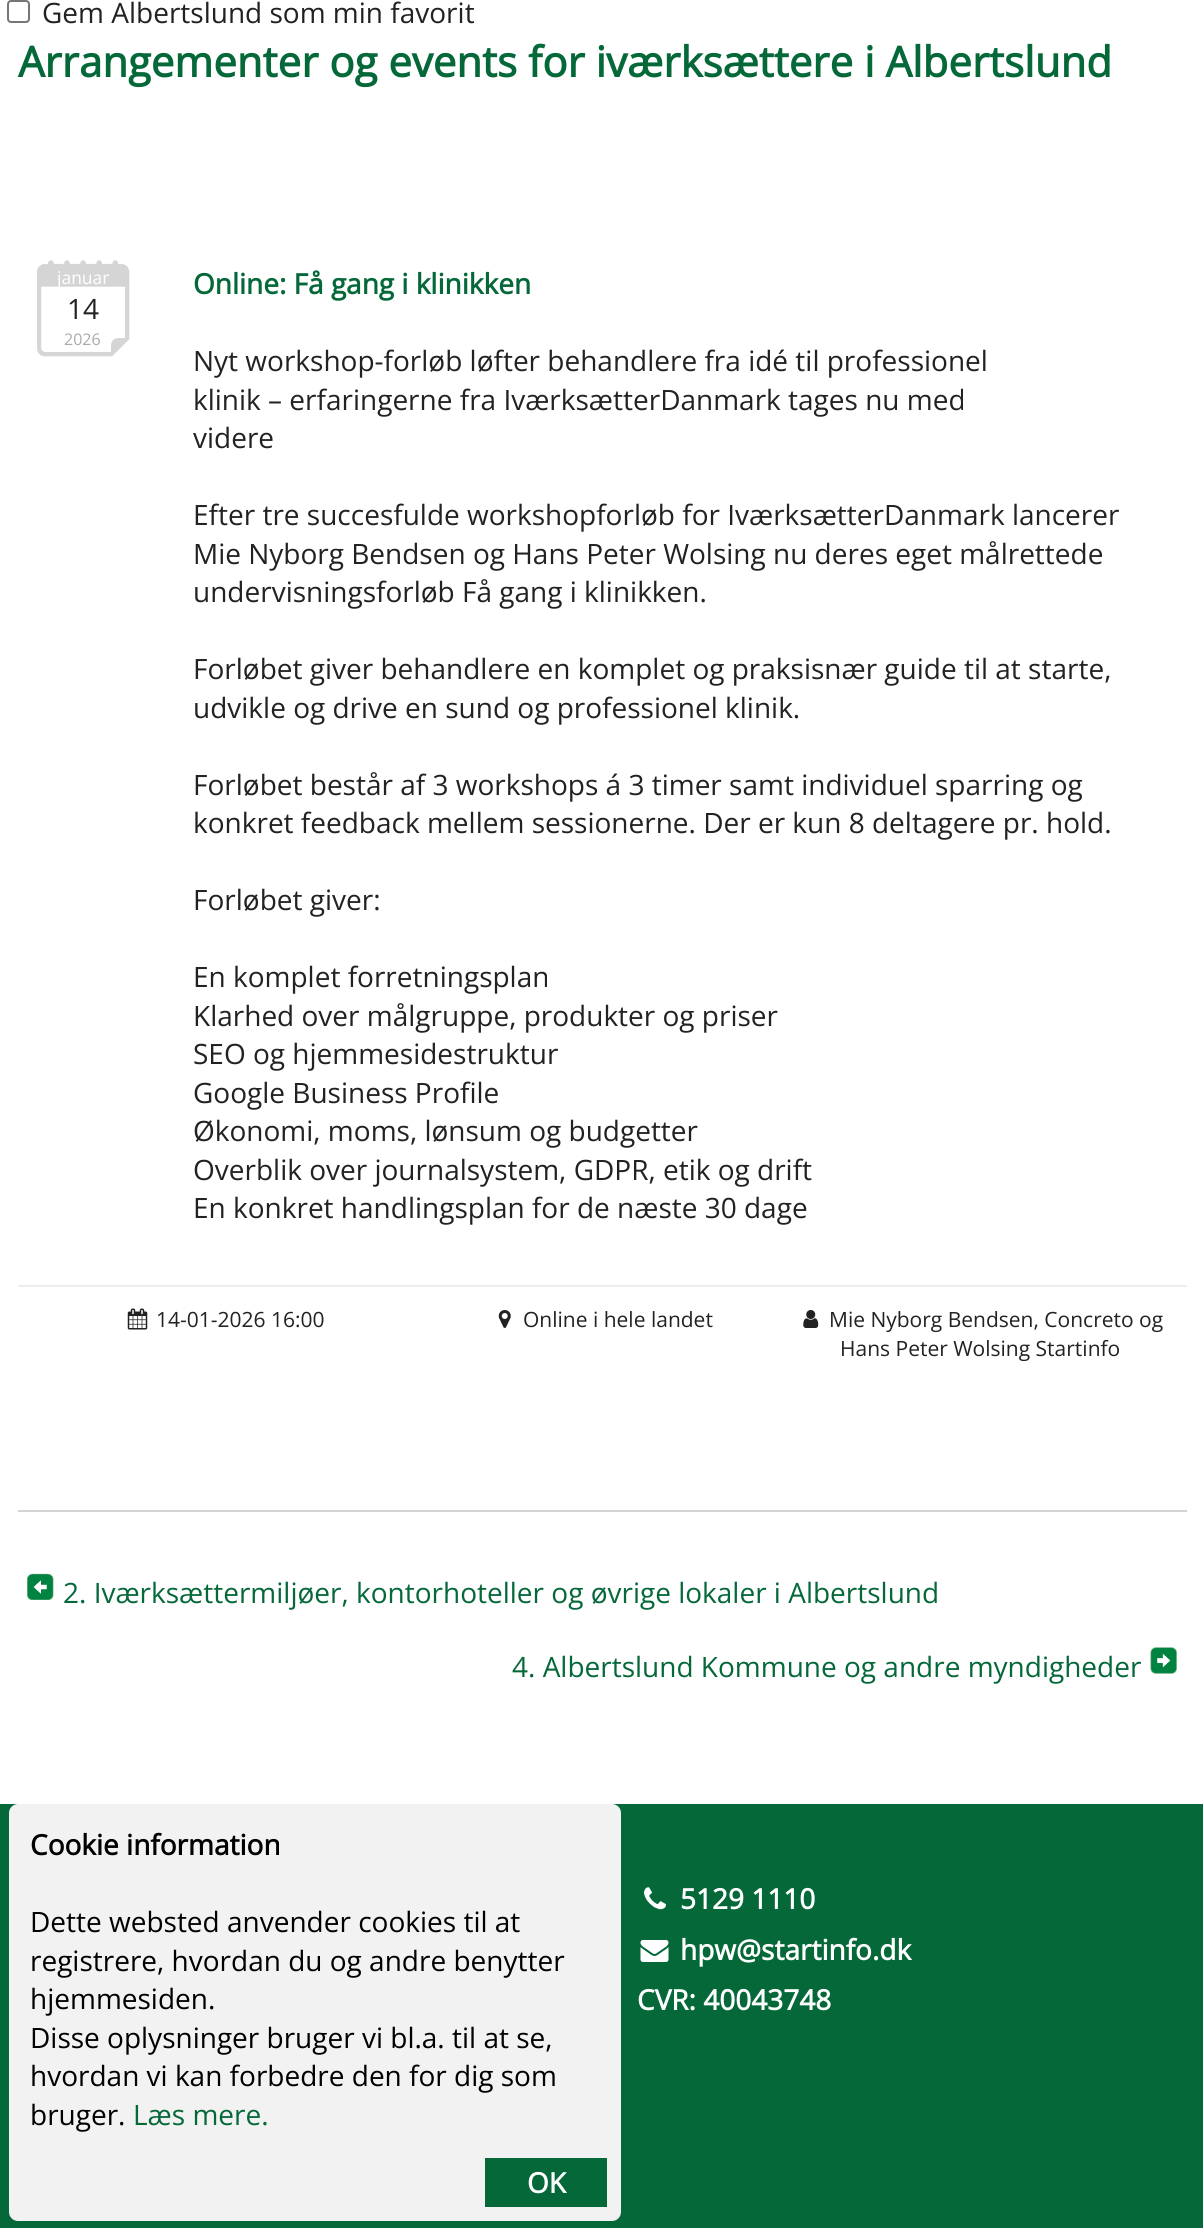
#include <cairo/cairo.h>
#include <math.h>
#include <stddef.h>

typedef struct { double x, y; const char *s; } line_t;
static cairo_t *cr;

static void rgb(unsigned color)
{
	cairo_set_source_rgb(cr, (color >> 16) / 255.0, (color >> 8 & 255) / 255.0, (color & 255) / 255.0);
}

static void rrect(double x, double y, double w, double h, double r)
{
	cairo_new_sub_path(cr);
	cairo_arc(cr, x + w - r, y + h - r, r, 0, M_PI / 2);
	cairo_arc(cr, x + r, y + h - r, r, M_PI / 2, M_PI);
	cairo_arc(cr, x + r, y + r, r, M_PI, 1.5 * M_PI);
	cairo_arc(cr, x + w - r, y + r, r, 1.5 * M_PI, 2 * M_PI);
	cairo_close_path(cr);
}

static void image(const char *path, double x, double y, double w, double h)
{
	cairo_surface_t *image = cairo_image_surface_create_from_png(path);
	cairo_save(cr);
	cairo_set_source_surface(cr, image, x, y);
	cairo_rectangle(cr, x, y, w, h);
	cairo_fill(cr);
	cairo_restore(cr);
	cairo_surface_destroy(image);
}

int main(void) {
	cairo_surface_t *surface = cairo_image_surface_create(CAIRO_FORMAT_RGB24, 1203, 2228);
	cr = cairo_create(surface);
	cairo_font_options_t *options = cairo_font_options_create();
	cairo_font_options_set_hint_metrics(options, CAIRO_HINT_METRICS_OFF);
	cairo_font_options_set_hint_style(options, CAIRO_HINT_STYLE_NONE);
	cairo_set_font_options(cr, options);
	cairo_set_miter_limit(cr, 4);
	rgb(0xffffff);
	cairo_paint(cr);
	rrect(8, 1, 21, 21, 3);
	rgb(0x767676);
	cairo_stroke(cr);
	image("img/1.png", 37, 260, 93, 97);
	rgb(0xeeeeee);
	cairo_rectangle(cr, 18, 1285, 1169, 2);
	cairo_fill(cr);
	image("img/2.png", 127, 1308, 21, 22);
	image("img/3.png", 498, 1310, 13, 18);
	image("img/4.png", 803, 1310, 16, 18);
	rgb(0xd4d4d4);
	cairo_rectangle(cr, 18, 1510, 1169, 2);
	cairo_fill(cr);
	image("img/5.png", 27, 1573, 27, 27);
	image("img/6.png", 1150, 1647, 27, 27);
	rgb(0x056839);
	cairo_rectangle(cr, 0, 1804, 1203, 424);
	cairo_fill(cr);
	image("img/7.png", 644, 1887, 22, 23);
	image("img/8.png", 640, 1940, 29, 22);
	rgb(0xf2f2f2);
	rrect(9, 1804, 612, 417, 9);
	cairo_fill(cr);
	rgb(0x056839);
	cairo_rectangle(cr, 485, 2158, 122, 49);
	cairo_fill(cr);
	cairo_select_font_face(cr, "Open Sans", CAIRO_FONT_SLANT_NORMAL, CAIRO_FONT_WEIGHT_NORMAL);
	cairo_set_font_size(cr, 28);
	rgb(0x222222);
	cairo_move_to(cr, 42, 23);
	cairo_show_text(cr, "Gem Albertslund som min favorit");
	cairo_select_font_face(cr, "Open Sans", CAIRO_FONT_SLANT_NORMAL, CAIRO_FONT_WEIGHT_BOLD);
	cairo_set_font_size(cr, 42);
	rgb(0x056839);
	cairo_move_to(cr, 18, 77);
	cairo_show_text(cr, "Arrangementer og events for iværksættere i Albertslund");
	cairo_select_font_face(cr, "Open Sans", CAIRO_FONT_SLANT_NORMAL, CAIRO_FONT_WEIGHT_NORMAL);
	cairo_set_font_size(cr, 17.5);
	rgb(0xffffff);
	cairo_move_to(cr, 57, 284);
	cairo_show_text(cr, "januar");
	cairo_set_font_size(cr, 28);
	rgb(0x222222);
	cairo_move_to(cr, 67, 319);
	cairo_show_text(cr, "14");
	cairo_set_font_size(cr, 16);
	rgb(0xababab);
	cairo_move_to(cr, 64, 345);
	cairo_show_text(cr, "2026");
	cairo_select_font_face(cr, "Open Sans", CAIRO_FONT_SLANT_NORMAL, CAIRO_FONT_WEIGHT_BOLD);
	cairo_set_font_size(cr, 28);
	rgb(0x056839);
	cairo_move_to(cr, 193, 294);
	cairo_show_text(cr, "Online: Få gang i klinikken");
	cairo_select_font_face(cr, "Open Sans", CAIRO_FONT_SLANT_NORMAL, CAIRO_FONT_WEIGHT_NORMAL);
	rgb(0x222222);
	{
		static const line_t items[] = {
			{193, 371, "Nyt workshop-forløb løfter behandlere fra idé til professionel"},
			{193, 410, "klinik – erfaringerne fra IværksætterDanmark tages nu med"},
			{193, 448, "videre"},
			{193, 525, "Efter tre succesfulde workshopforløb for IværksætterDanmark lancerer"},
			{193, 564, "Mie Nyborg Bendsen og Hans Peter Wolsing nu deres eget målrettede"},
			{193, 602, "undervisningsforløb Få gang i klinikken."},
			{193, 679, "Forløbet giver behandlere en komplet og praksisnær guide til at starte,"},
			{193, 718, "udvikle og drive en sund og professionel klinik."},
			{193, 795, "Forløbet består af 3 workshops á 3 timer samt individuel sparring og"},
			{193, 833, "konkret feedback mellem sessionerne. Der er kun 8 deltagere pr. hold."},
			{193, 910, "Forløbet giver:"},
			{193, 987, "En komplet forretningsplan"},
			{193, 1026, "Klarhed over målgruppe, produkter og priser"},
			{193, 1064, "SEO og hjemmesidestruktur"},
			{193, 1103, "Google Business Profile"},
			{193, 1141, "Økonomi, moms, lønsum og budgetter"},
			{193, 1180, "Overblik over journalsystem, GDPR, etik og drift"},
			{193, 1218, "En konkret handlingsplan for de næste 30 dage"},
		};
		for (size_t i = 0; i < sizeof items / sizeof *items; i++) {
			cairo_move_to(cr, items[i].x, items[i].y);
			cairo_show_text(cr, items[i].s);
		}
	}
	cairo_set_font_size(cr, 21);
	{
		static const line_t items[] = {
			{156, 1327, "14-01-2026 16:00"},
			{523, 1327, "Online i hele landet"},
			{829, 1327, "Mie Nyborg Bendsen, Concreto og"},
			{840, 1356, "Hans Peter Wolsing Startinfo"},
		};
		for (size_t i = 0; i < sizeof items / sizeof *items; i++) {
			cairo_move_to(cr, items[i].x, items[i].y);
			cairo_show_text(cr, items[i].s);
		}
	}
	cairo_set_font_size(cr, 28);
	rgb(0x056839);
	cairo_move_to(cr, 63, 1603);
	cairo_show_text(cr, "2. Iværksættermiljøer, kontorhoteller og øvrige lokaler i Albertslund");
	cairo_move_to(cr, 512, 1677);
	cairo_show_text(cr, "4. Albertslund Kommune og andre myndigheder");
	cairo_select_font_face(cr, "Open Sans", CAIRO_FONT_SLANT_NORMAL, CAIRO_FONT_WEIGHT_BOLD);
	rgb(0xffffff);
	{
		static const line_t items[] = {
			{680, 1909, "5129 1110"},
			{680, 1960, "hpw@startinfo.dk"},
			{637, 2010, "CVR: 40043748"},
		};
		for (size_t i = 0; i < sizeof items / sizeof *items; i++) {
			cairo_move_to(cr, items[i].x, items[i].y);
			cairo_show_text(cr, items[i].s);
		}
	}
	rgb(0x000000);
	cairo_move_to(cr, 30, 1855);
	cairo_show_text(cr, "Cookie information");
	cairo_select_font_face(cr, "Open Sans", CAIRO_FONT_SLANT_NORMAL, CAIRO_FONT_WEIGHT_NORMAL);
	{
		static const line_t items[] = {
			{30, 1932, "Dette websted anvender cookies til at"},
			{30, 1971, "registrere, hvordan du og andre benytter"},
			{30, 2009, "hjemmesiden."},
			{30, 2048, "Disse oplysninger bruger vi bl.a. til at se,"},
			{30, 2086, "hvordan vi kan forbedre den for dig som"},
			{30, 2125, "bruger."},
		};
		for (size_t i = 0; i < sizeof items / sizeof *items; i++) {
			cairo_move_to(cr, items[i].x, items[i].y);
			cairo_show_text(cr, items[i].s);
		}
	}
	rgb(0x056839);
	cairo_move_to(cr, 133, 2125);
	cairo_show_text(cr, "Læs mere.");
	cairo_select_font_face(cr, "Open Sans", CAIRO_FONT_SLANT_NORMAL, CAIRO_FONT_WEIGHT_BOLD);
	rgb(0xffffff);
	cairo_move_to(cr, 527, 2193);
	cairo_show_text(cr, "OK");
	cairo_surface_write_to_png(surface, "page.png");
	cairo_font_options_destroy(options);
	cairo_destroy(cr);
	cairo_surface_destroy(surface);
	return 0;
}
